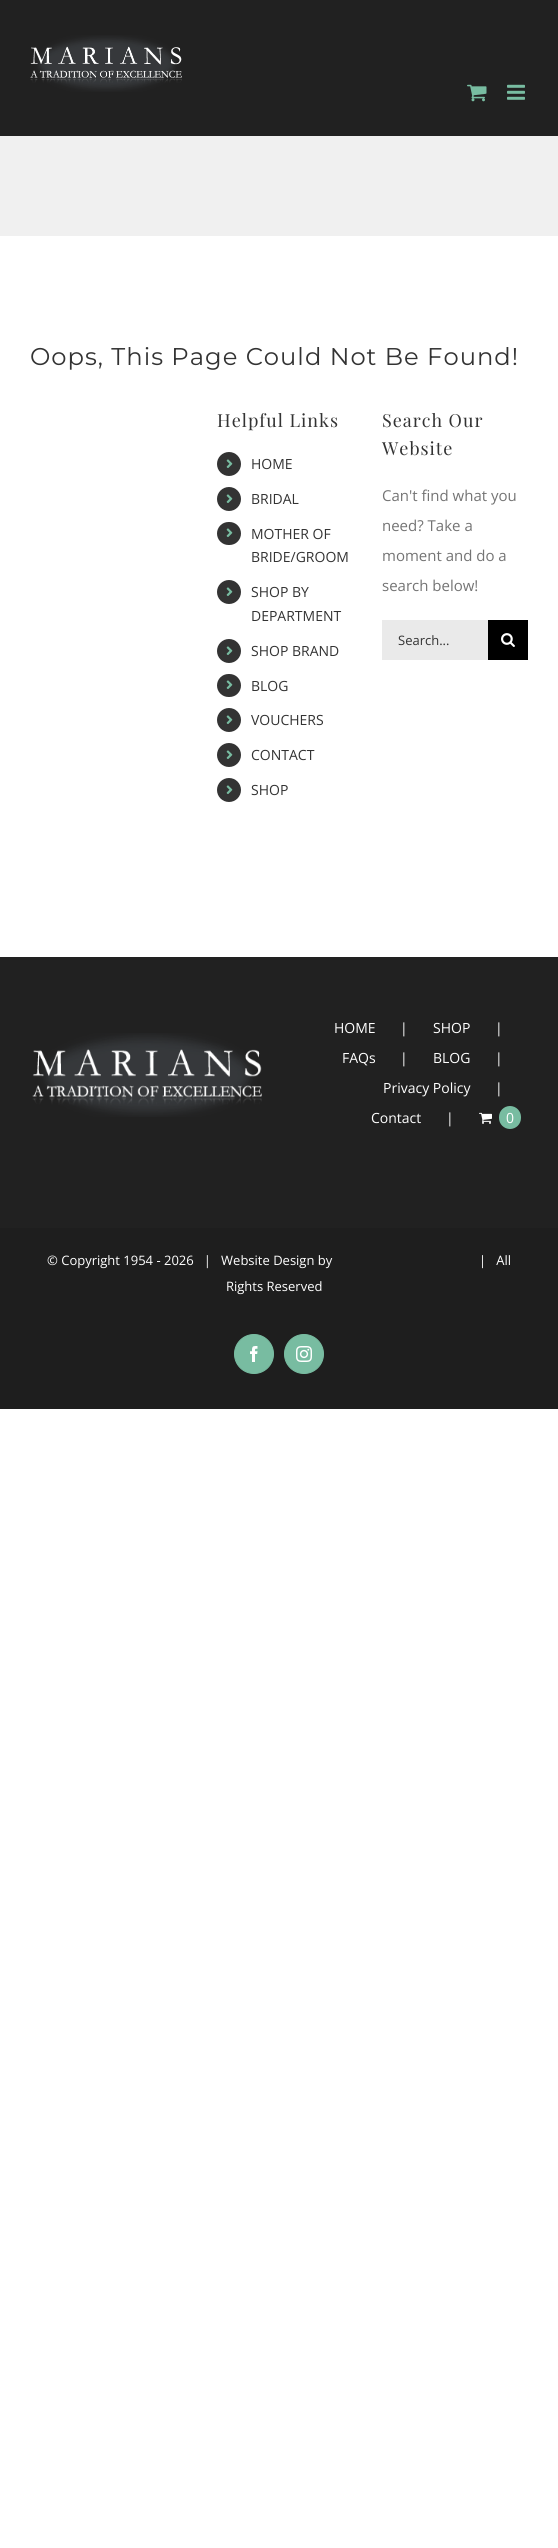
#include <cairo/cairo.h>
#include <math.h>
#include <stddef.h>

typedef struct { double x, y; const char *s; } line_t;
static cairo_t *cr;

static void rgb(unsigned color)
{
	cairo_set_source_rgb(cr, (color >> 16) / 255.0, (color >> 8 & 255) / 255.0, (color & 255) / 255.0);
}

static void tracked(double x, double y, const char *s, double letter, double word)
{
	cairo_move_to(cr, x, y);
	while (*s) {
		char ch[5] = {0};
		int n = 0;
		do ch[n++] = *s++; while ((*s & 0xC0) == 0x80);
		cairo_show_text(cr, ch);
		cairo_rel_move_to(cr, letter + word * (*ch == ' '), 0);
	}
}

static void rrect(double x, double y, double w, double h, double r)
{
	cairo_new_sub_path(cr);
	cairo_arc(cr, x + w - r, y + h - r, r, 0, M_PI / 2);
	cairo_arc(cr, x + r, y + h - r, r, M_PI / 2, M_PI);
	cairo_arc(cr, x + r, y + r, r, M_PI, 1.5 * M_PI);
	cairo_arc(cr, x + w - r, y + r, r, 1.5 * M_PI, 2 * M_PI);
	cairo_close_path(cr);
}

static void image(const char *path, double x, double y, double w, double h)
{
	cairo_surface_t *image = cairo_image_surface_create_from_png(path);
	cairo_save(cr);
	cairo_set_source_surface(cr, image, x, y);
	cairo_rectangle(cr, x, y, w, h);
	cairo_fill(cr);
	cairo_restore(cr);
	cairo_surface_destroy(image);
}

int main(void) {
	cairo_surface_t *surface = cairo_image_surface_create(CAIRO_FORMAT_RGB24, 558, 2548);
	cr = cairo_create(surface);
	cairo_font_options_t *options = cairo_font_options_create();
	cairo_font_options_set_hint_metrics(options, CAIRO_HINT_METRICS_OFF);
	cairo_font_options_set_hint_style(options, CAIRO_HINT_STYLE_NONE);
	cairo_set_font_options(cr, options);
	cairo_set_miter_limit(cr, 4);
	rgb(0xffffff);
	cairo_paint(cr);
	rgb(0x212121);
	cairo_rectangle(cr, 0, 0, 558, 136);
	cairo_fill(cr);
	image("img/1.png", 30, 35, 152, 57);
	image("img/2.png", 467, 84, 20, 18);
	image("img/3.png", 507, 84, 18, 16);
	rgb(0xf0f0f0);
	cairo_rectangle(cr, 0, 136, 558, 100);
	cairo_fill(cr);
	rgb(0x333333);
	cairo_arc(cr, 229, 464, 12, 0, 2 * M_PI);
	cairo_fill(cr);
	image("img/4.png", 226, 459, 7, 9);
	cairo_arc(cr, 229, 499, 12, 0, 2 * M_PI);
	cairo_fill(cr);
	image("img/4.png", 226, 494, 7, 9);
	rrect(217, 522, 24, 23, 11.5);
	cairo_fill(cr);
	image("img/4.png", 226, 528, 7, 9);
	cairo_arc(cr, 229, 592, 12, 0, 2 * M_PI);
	cairo_fill(cr);
	image("img/4.png", 226, 587, 7, 9);
	cairo_arc(cr, 229, 651, 12, 0, 2 * M_PI);
	cairo_fill(cr);
	image("img/4.png", 226, 646, 7, 9);
	rrect(217, 674, 24, 23, 11.5);
	cairo_fill(cr);
	image("img/4.png", 226, 680, 7, 9);
	cairo_arc(cr, 229, 720, 12, 0, 2 * M_PI);
	cairo_fill(cr);
	image("img/4.png", 226, 715, 7, 9);
	cairo_arc(cr, 229, 755, 12, 0, 2 * M_PI);
	cairo_fill(cr);
	image("img/4.png", 226, 750, 7, 9);
	cairo_arc(cr, 229, 790, 12, 0, 2 * M_PI);
	cairo_fill(cr);
	image("img/4.png", 226, 785, 7, 9);
	rgb(0xeaeaea);
	cairo_rectangle(cr, 382, 620, 106, 40);
	cairo_fill(cr);
	rgb(0x000000);
	cairo_rectangle(cr, 488, 620, 40, 40);
	cairo_fill(cr);
	image("img/5.png", 501, 633, 14, 14);
	rgb(0x212121);
	cairo_rectangle(cr, 0, 957, 558, 271);
	cairo_fill(cr);
	image("img/6.png", 32, 1033, 230, 84);
	image("img/7.png", 479, 1112, 13, 12);
	rgb(0x78bca1);
	rrect(499, 1106, 22, 23, 11);
	cairo_fill(cr);
	rgb(0x1e1e1e);
	cairo_rectangle(cr, 0, 1228, 558, 181);
	cairo_fill(cr);
	rgb(0x78bca1);
	cairo_arc(cr, 254, 1354, 19.5, 0, 2 * M_PI);
	cairo_fill_preserve(cr);
	cairo_set_line_width(cr, 1);
	cairo_stroke(cr);
	image("img/8.png", 250, 1346, 8, 16);
	cairo_arc(cr, 304, 1354, 19.5, 0, 2 * M_PI);
	cairo_fill_preserve(cr);
	cairo_stroke(cr);
	image("img/9.png", 296, 1346, 16, 16);
	cairo_select_font_face(cr, "Montserrat Thin", CAIRO_FONT_SLANT_NORMAL, CAIRO_FONT_WEIGHT_NORMAL);
	cairo_set_font_size(cr, 24.25);
	rgb(0x333333);
	tracked(30, 365, "Oops, This Page Could Not Be Found!", 1, 0);
	cairo_select_font_face(cr, "Playfair Display", CAIRO_FONT_SLANT_NORMAL, CAIRO_FONT_WEIGHT_NORMAL);
	cairo_set_font_size(cr, 18);
	tracked(217, 427, "Helpful Links", 1, 0);
	cairo_select_font_face(cr, "Open Sans", CAIRO_FONT_SLANT_NORMAL, CAIRO_FONT_WEIGHT_NORMAL);
	cairo_set_font_size(cr, 14);
	{
		static const line_t items[] = {
			{251, 469, "HOME"},
			{251, 504, "BRIDAL"},
			{251, 539, "MOTHER OF"},
			{251, 562, "BRIDE/GROOM"},
			{251, 597, "SHOP BY"},
			{251, 621, "DEPARTMENT"},
			{251, 656, "SHOP BRAND"},
			{251, 691, "BLOG"},
			{251, 725, "VOUCHERS"},
			{251, 760, "CONTACT"},
			{251, 795, "SHOP"},
		};
		for (size_t i = 0; i < sizeof items / sizeof *items; i++) {
			cairo_move_to(cr, items[i].x, items[i].y);
			cairo_show_text(cr, items[i].s);
		}
	}
	cairo_select_font_face(cr, "Playfair Display", CAIRO_FONT_SLANT_NORMAL, CAIRO_FONT_WEIGHT_NORMAL);
	cairo_set_font_size(cr, 18);
	tracked(382, 427, "Search Our", 1, 0);
	tracked(382, 455, "Website", 1, 0);
	cairo_select_font_face(cr, "Open Sans", CAIRO_FONT_SLANT_NORMAL, CAIRO_FONT_WEIGHT_NORMAL);
	cairo_set_font_size(cr, 15);
	rgb(0x747474);
	{
		static const line_t items[] = {
			{382, 501, "Can't find what you"},
			{382, 531, "need? Take a"},
			{382, 561, "moment and do a"},
			{382, 591, "search below!"},
		};
		for (size_t i = 0; i < sizeof items / sizeof *items; i++) {
			cairo_move_to(cr, items[i].x, items[i].y);
			cairo_show_text(cr, items[i].s);
		}
	}
	cairo_set_font_size(cr, 13);
	rgb(0x333333);
	cairo_move_to(cr, 398, 645);
	cairo_show_text(cr, "Search...");
	cairo_set_font_size(cr, 14);
	rgb(0xffffff);
	{
		static const line_t items[] = {
			{334, 1033, "HOME"},
			{400, 1033, "|"},
			{433, 1033, "SHOP"},
			{495, 1033, "|"},
			{342, 1063, "FAQs"},
			{400, 1063, "|"},
			{433, 1063, "BLOG"},
			{495, 1063, "|"},
			{383, 1093, "Privacy Policy"},
			{495, 1093, "|"},
			{371, 1123, "Contact"},
			{446, 1123, "|"},
			{506, 1123, "0"},
		};
		for (size_t i = 0; i < sizeof items / sizeof *items; i++) {
			cairo_move_to(cr, items[i].x, items[i].y);
			cairo_show_text(cr, items[i].s);
		}
	}
	cairo_set_font_size(cr, 13);
	{
		static const line_t items[] = {
			{47, 1265, "© Copyright 1954 - 2026   |   Website Design by"},
			{479, 1265, "|   All"},
			{226, 1291, "Rights Reserved"},
		};
		for (size_t i = 0; i < sizeof items / sizeof *items; i++) {
			cairo_move_to(cr, items[i].x, items[i].y);
			cairo_show_text(cr, items[i].s);
		}
	}
	cairo_surface_write_to_png(surface, "page.png");
	cairo_font_options_destroy(options);
	cairo_destroy(cr);
	cairo_surface_destroy(surface);
	return 0;
}
